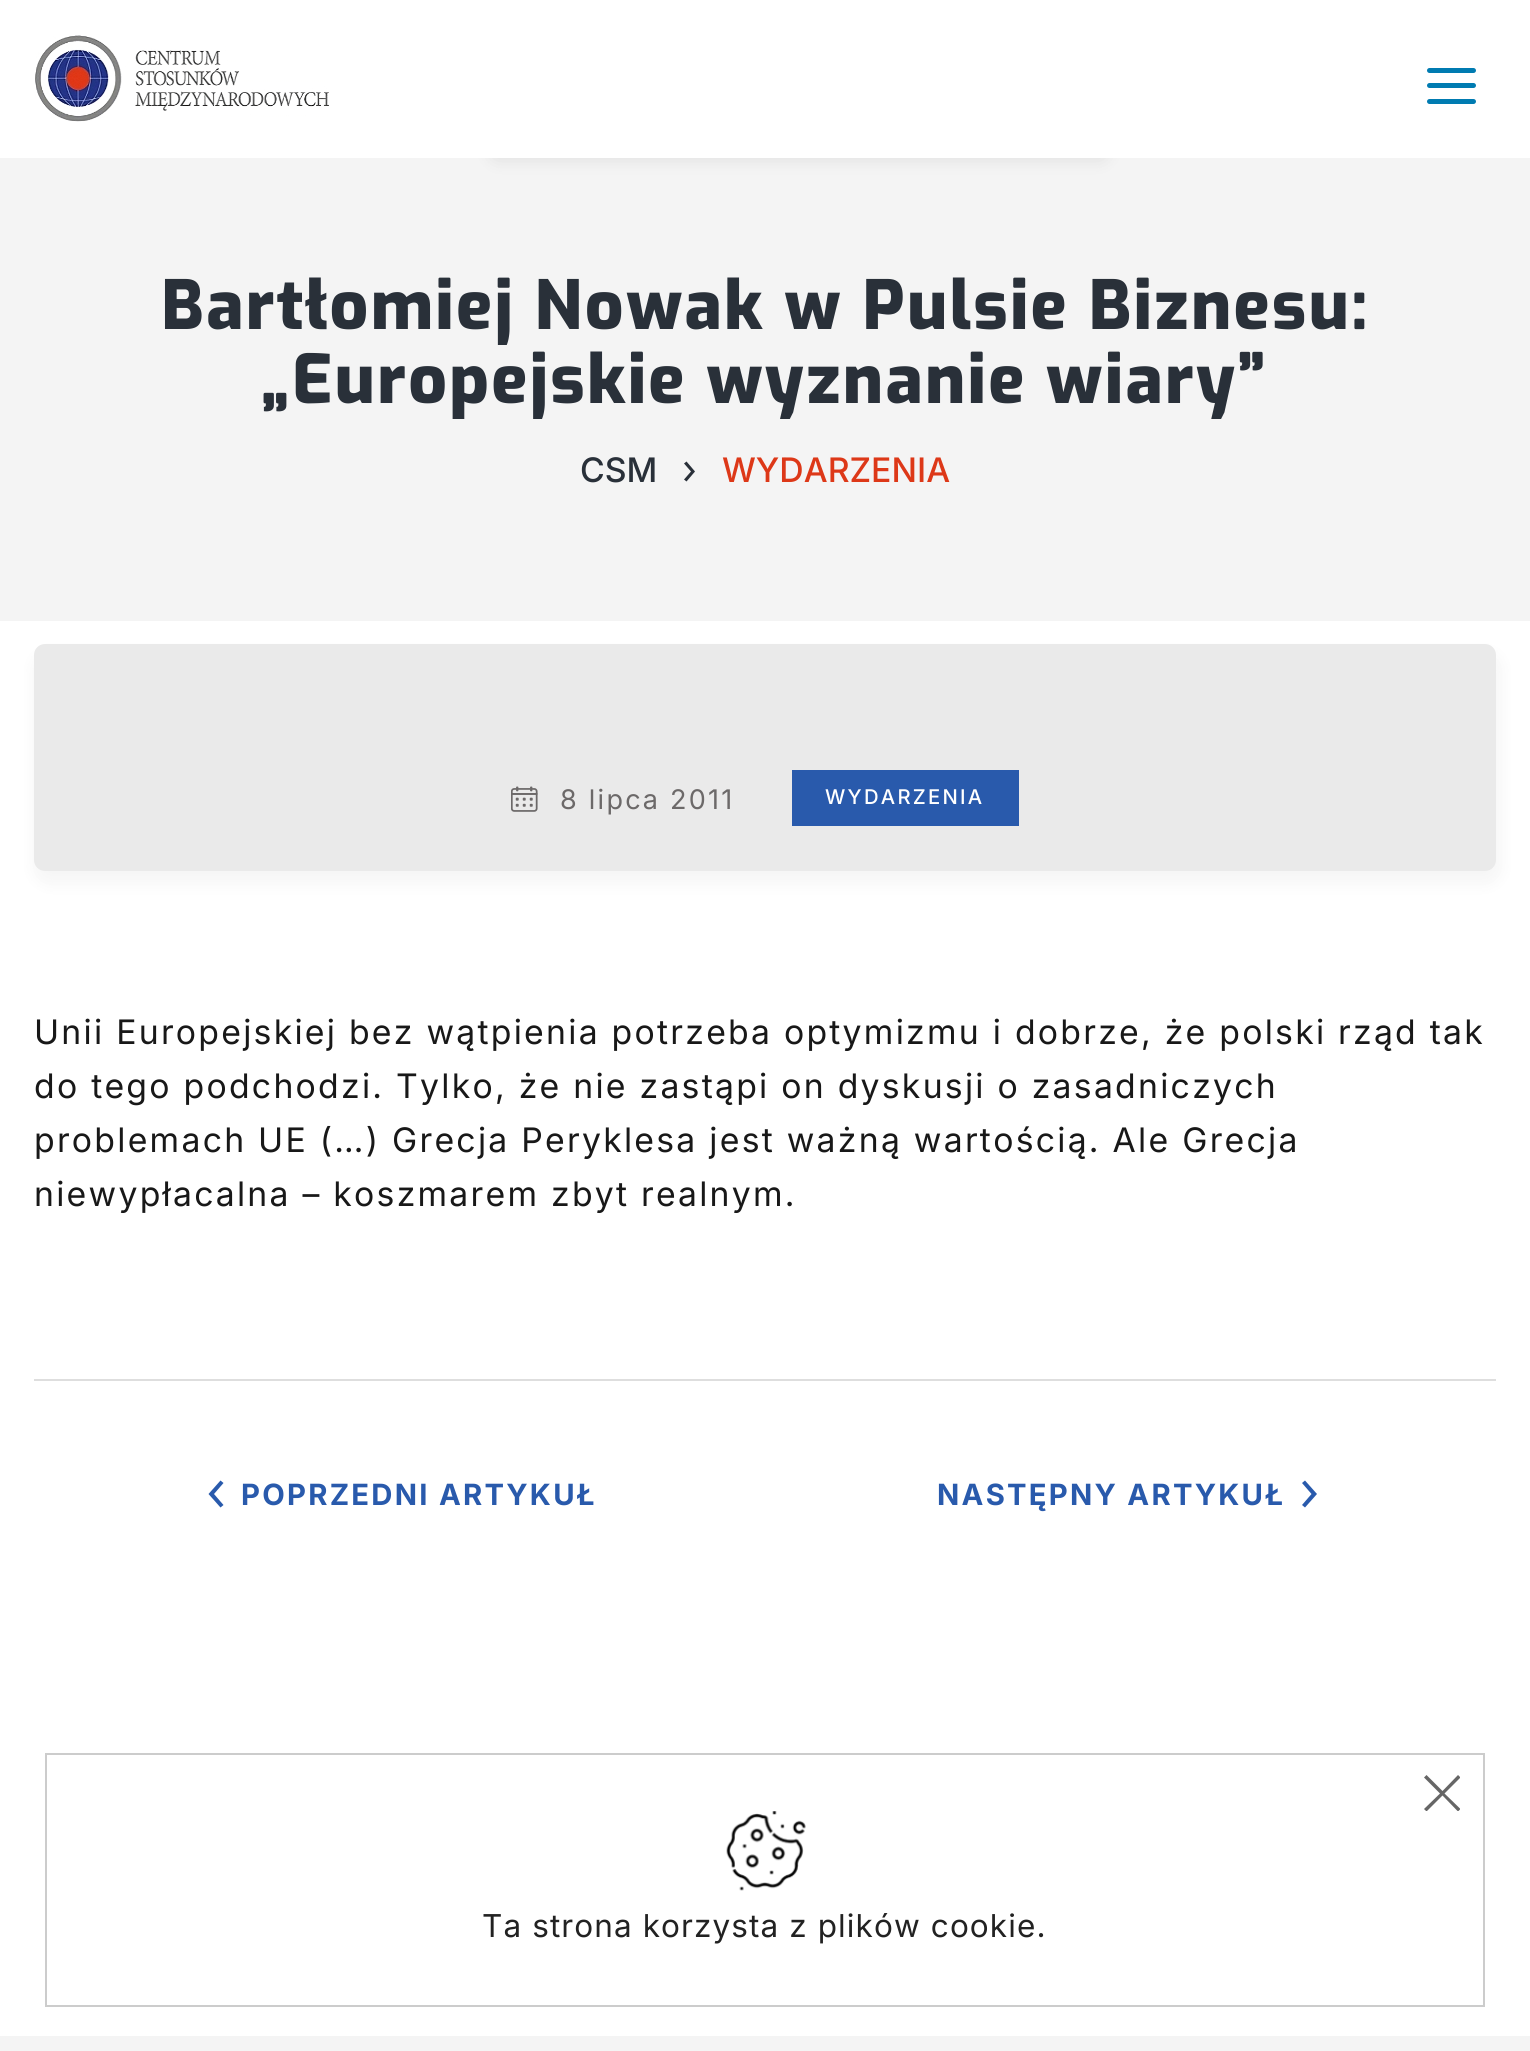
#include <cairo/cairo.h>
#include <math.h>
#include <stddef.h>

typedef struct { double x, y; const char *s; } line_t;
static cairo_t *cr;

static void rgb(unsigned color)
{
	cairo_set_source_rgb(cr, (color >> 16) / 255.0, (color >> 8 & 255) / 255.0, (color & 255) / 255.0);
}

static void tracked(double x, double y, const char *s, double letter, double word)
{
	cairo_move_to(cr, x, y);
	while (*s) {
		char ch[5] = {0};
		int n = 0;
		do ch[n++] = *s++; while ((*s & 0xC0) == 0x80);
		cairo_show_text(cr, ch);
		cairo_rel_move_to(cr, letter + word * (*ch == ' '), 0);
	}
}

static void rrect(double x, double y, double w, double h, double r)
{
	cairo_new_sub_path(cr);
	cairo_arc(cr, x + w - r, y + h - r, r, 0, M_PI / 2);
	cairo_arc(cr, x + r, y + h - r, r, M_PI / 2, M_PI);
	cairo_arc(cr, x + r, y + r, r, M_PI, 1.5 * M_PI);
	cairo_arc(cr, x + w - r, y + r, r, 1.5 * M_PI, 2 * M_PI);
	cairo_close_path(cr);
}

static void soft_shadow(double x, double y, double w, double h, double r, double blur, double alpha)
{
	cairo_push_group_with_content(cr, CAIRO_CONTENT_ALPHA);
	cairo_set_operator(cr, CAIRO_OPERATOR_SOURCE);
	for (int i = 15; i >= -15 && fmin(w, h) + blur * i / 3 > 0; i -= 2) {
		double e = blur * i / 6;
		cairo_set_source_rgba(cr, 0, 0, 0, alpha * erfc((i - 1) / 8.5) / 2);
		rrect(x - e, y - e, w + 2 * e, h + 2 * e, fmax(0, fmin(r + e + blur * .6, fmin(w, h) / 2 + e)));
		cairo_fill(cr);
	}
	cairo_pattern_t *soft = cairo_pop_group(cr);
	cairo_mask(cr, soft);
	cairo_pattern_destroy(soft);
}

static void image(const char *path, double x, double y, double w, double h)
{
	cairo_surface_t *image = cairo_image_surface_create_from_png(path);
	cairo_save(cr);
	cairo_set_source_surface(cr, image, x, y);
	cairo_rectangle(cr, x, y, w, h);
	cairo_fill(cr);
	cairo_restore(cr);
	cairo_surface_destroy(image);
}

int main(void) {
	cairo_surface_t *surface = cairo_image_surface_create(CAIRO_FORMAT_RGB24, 1530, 2051);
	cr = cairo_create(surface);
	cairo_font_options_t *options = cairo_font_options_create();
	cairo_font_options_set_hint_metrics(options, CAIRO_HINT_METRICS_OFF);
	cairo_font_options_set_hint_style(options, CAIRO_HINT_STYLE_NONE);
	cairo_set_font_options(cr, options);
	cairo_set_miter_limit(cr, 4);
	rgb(0xffffff);
	cairo_paint(cr);
	image("img/1.png", 35, 35, 294, 87);
	rgb(0x007bb1);
	rrect(1427, 68, 49, 5, 2.5);
	cairo_fill(cr);
	rrect(1427, 83, 49, 5, 2.5);
	cairo_fill(cr);
	rrect(1427, 99, 49, 5, 2.5);
	cairo_fill(cr);
	rgb(0xf4f4f4);
	cairo_rectangle(cr, 0, 158, 1530, 463);
	cairo_fill(cr);
	cairo_save(cr);
	cairo_rectangle(cr, 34, 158, 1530, 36);
	cairo_clip(cr);
	rgb(0x000000);
	soft_shadow(493, 140, 612, 18, 9, 9, 0.1);
	cairo_restore(cr);
	rgb(0x293039);
	cairo_new_path(cr);
	cairo_move_to(cr, 695, 471.5);
	cairo_line_to(cr, 686.5, 481.5);
	cairo_line_to(cr, 684, 479.5);
	cairo_line_to(cr, 691, 471.5);
	cairo_line_to(cr, 684, 463.5);
	cairo_line_to(cr, 686.5, 461.5);
	cairo_close_path(cr);
	cairo_fill(cr);
	rgb(0x000000);
	soft_shadow(34, 653, 1467, 231, 14, 9, 0.04);
	rgb(0xeaeaea);
	rrect(34, 644, 1462, 227, 11);
	cairo_fill(cr);
	image("img/2.png", 511, 786, 27, 26);
	rgb(0x295aac);
	cairo_rectangle(cr, 792, 770, 227, 56);
	cairo_fill(cr);
	rgb(0xdedede);
	cairo_rectangle(cr, 34, 1379, 1462, 2);
	cairo_fill(cr);
	rgb(0x295aac);
	cairo_new_path(cr);
	cairo_move_to(cr, 208.5, 1494);
	cairo_line_to(cr, 220.5, 1507.5);
	cairo_line_to(cr, 223.5, 1505);
	cairo_line_to(cr, 214, 1494);
	cairo_line_to(cr, 223.5, 1483);
	cairo_line_to(cr, 220.5, 1480.5);
	cairo_close_path(cr);
	cairo_fill(cr);
	cairo_new_path(cr);
	cairo_move_to(cr, 1317, 1494);
	cairo_line_to(cr, 1305, 1507.5);
	cairo_line_to(cr, 1302, 1505);
	cairo_line_to(cr, 1311.5, 1494);
	cairo_line_to(cr, 1302, 1483);
	cairo_line_to(cr, 1305, 1480.5);
	cairo_close_path(cr);
	cairo_fill(cr);
	rgb(0xf4f4f4);
	cairo_rectangle(cr, 0, 2036, 1530, 15);
	cairo_fill(cr);
	cairo_rectangle(cr, 46, 1754, 1438, 252);
	rgb(0xcccccc);
	cairo_stroke(cr);
	cairo_save(cr);
	cairo_rectangle(cr, 1424, 1775, 36, 36);
	cairo_clip(cr);
	rgb(0x666666);
	cairo_new_path(cr);
	cairo_move_to(cr, 1460.5, 1777.5);
	cairo_line_to(cr, 1458, 1775);
	cairo_line_to(cr, 1442.5, 1791);
	cairo_line_to(cr, 1426.5, 1775);
	cairo_line_to(cr, 1424, 1777.5);
	cairo_line_to(cr, 1440, 1793.5);
	cairo_line_to(cr, 1424, 1809);
	cairo_line_to(cr, 1426.5, 1811.5);
	cairo_line_to(cr, 1442.5, 1795.5);
	cairo_line_to(cr, 1458, 1811.5);
	cairo_line_to(cr, 1460.5, 1809);
	cairo_line_to(cr, 1444.5, 1793.5);
	cairo_close_path(cr);
	cairo_fill(cr);
	cairo_restore(cr);
	image("img/3.png", 726, 1811, 80, 80);
	cairo_select_font_face(cr, "Exo ExtraBold", CAIRO_FONT_SLANT_NORMAL, CAIRO_FONT_WEIGHT_NORMAL);
	cairo_set_font_size(cr, 67.5);
	rgb(0x293039);
	tracked(161, 329, "Bartłomiej Nowak w Pulsie Biznesu:", 2.25, 0);
	tracked(261, 403, "„Europejskie wyznanie wiary”", 2.25, 0);
	cairo_select_font_face(cr, "Inter Medium", CAIRO_FONT_SLANT_NORMAL, CAIRO_FONT_WEIGHT_NORMAL);
	cairo_set_font_size(cr, 33.75);
	cairo_move_to(cr, 580, 482);
	cairo_show_text(cr, "CSM");
	rgb(0xdd3818);
	cairo_move_to(cr, 722, 482);
	cairo_show_text(cr, "WYDARZENIA");
	cairo_select_font_face(cr, "Inter", CAIRO_FONT_SLANT_NORMAL, CAIRO_FONT_WEIGHT_NORMAL);
	cairo_set_font_size(cr, 27);
	rgb(0x6c6969);
	tracked(560, 809, "8 lipca 2011", 2.25, 0);
	cairo_select_font_face(cr, "Inter Medium", CAIRO_FONT_SLANT_NORMAL, CAIRO_FONT_WEIGHT_NORMAL);
	cairo_set_font_size(cr, 20.25);
	rgb(0xffffff);
	tracked(825, 804, "WYDARZENIA", 2.25, 0);
	cairo_select_font_face(cr, "Inter", CAIRO_FONT_SLANT_NORMAL, CAIRO_FONT_WEIGHT_NORMAL);
	cairo_set_font_size(cr, 33.75);
	rgb(0x181818);
	{
		static const line_t items[] = {
			{34, 1044, "Unii Europejskiej bez wątpienia potrzeba optymizmu i dobrze, że polski rząd tak"},
			{34, 1098, "do tego podchodzi. Tylko, że nie zastąpi on dyskusji o zasadniczych"},
			{34, 1152, "problemach UE (…) Grecja Peryklesa jest ważną wartością. Ale Grecja"},
			{34, 1206, "niewypłacalna – koszmarem zbyt realnym."},
		};
		for (size_t i = 0; i < sizeof items / sizeof *items; i++) {
			tracked(items[i].x, items[i].y, items[i].s, 2.25, 0);
		}
	}
	cairo_select_font_face(cr, "Inter", CAIRO_FONT_SLANT_NORMAL, CAIRO_FONT_WEIGHT_BOLD);
	cairo_set_font_size(cr, 29.25);
	rgb(0x295aac);
	tracked(241, 1505, "POPRZEDNI ARTYKUŁ", 2.25, 0);
	tracked(937, 1505, "NASTĘPNY ARTYKUŁ", 2.25, 0);
	cairo_select_font_face(cr, "Inter", CAIRO_FONT_SLANT_NORMAL, CAIRO_FONT_WEIGHT_NORMAL);
	cairo_set_font_size(cr, 31.5);
	rgb(0x222222);
	tracked(482, 1937, "Ta strona korzysta z plików cookie.", 1.1, 0);
	cairo_surface_write_to_png(surface, "page.png");
	cairo_font_options_destroy(options);
	cairo_destroy(cr);
	cairo_surface_destroy(surface);
	return 0;
}
